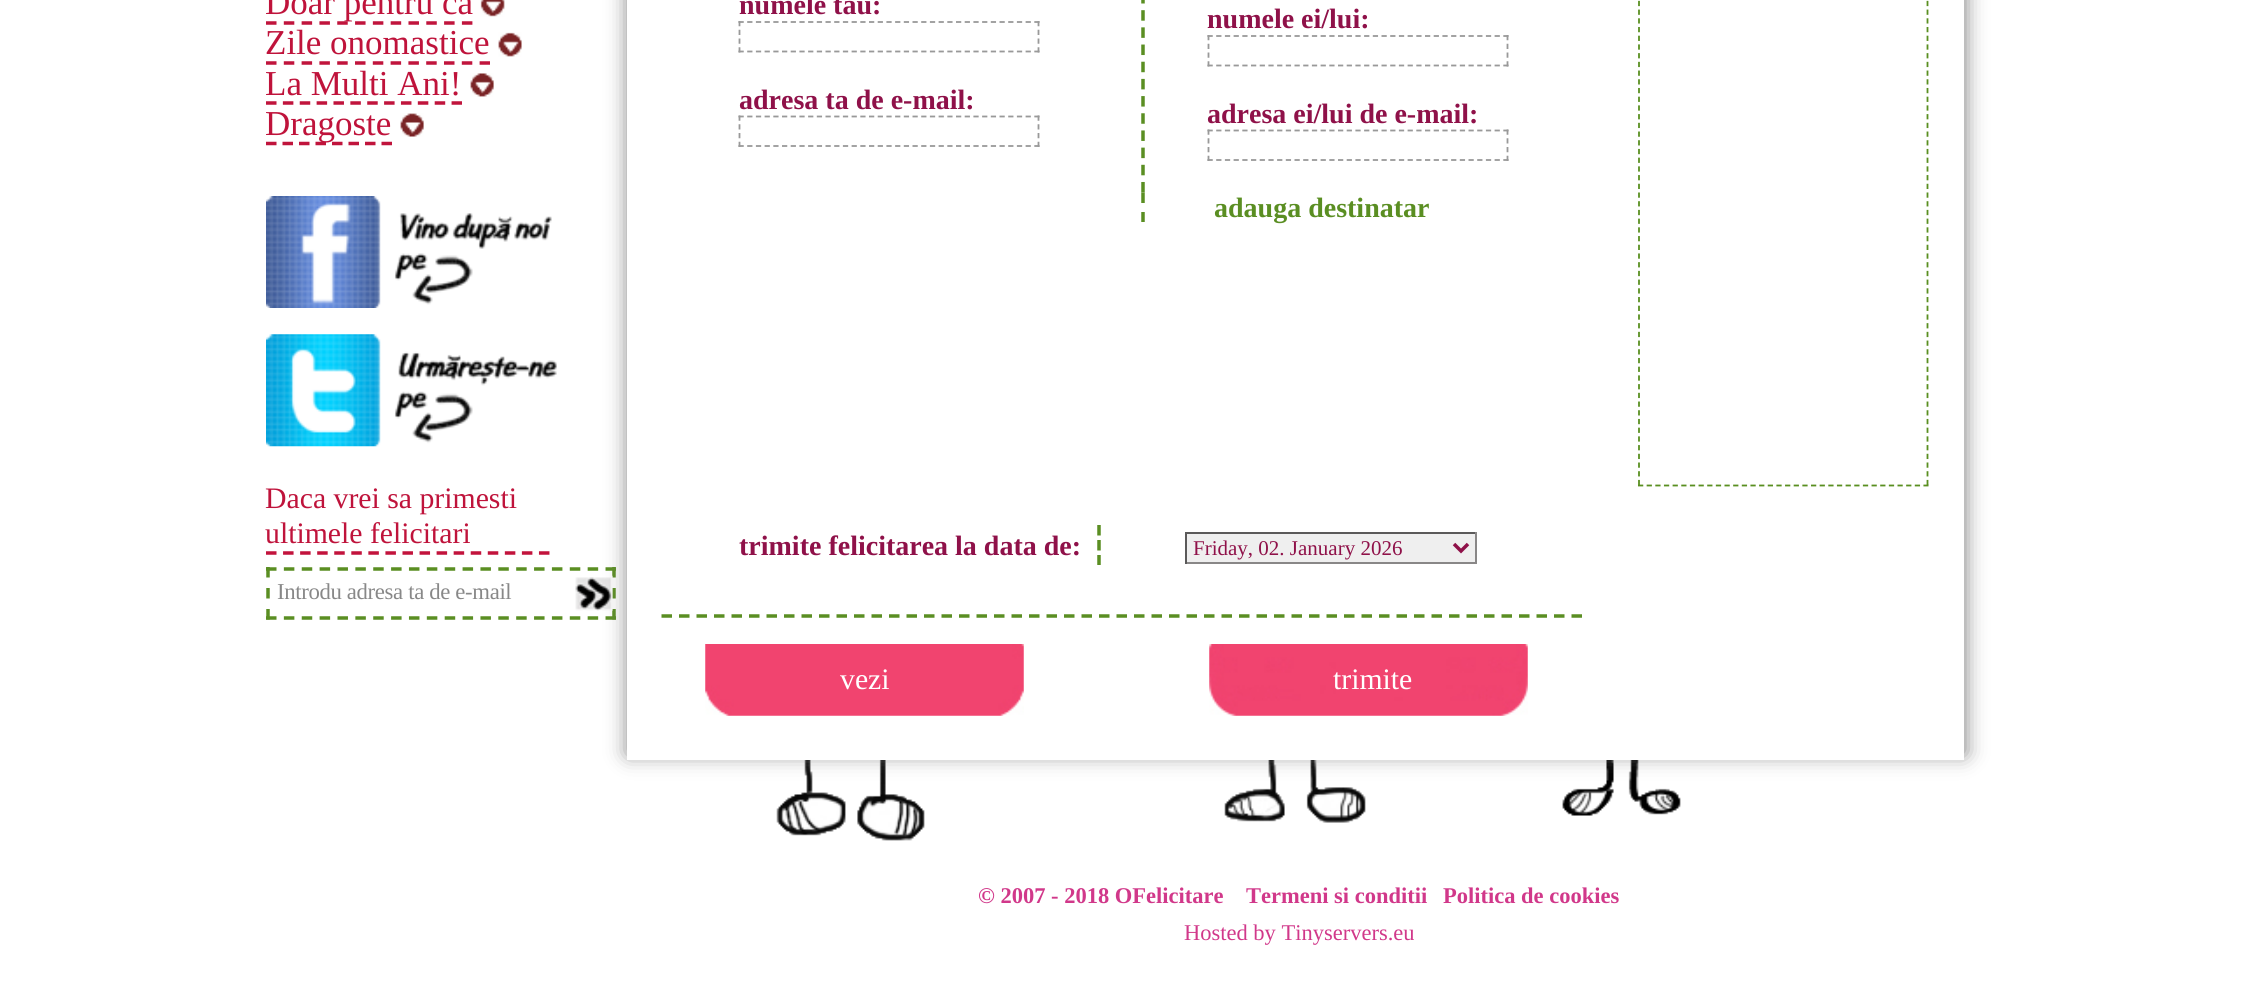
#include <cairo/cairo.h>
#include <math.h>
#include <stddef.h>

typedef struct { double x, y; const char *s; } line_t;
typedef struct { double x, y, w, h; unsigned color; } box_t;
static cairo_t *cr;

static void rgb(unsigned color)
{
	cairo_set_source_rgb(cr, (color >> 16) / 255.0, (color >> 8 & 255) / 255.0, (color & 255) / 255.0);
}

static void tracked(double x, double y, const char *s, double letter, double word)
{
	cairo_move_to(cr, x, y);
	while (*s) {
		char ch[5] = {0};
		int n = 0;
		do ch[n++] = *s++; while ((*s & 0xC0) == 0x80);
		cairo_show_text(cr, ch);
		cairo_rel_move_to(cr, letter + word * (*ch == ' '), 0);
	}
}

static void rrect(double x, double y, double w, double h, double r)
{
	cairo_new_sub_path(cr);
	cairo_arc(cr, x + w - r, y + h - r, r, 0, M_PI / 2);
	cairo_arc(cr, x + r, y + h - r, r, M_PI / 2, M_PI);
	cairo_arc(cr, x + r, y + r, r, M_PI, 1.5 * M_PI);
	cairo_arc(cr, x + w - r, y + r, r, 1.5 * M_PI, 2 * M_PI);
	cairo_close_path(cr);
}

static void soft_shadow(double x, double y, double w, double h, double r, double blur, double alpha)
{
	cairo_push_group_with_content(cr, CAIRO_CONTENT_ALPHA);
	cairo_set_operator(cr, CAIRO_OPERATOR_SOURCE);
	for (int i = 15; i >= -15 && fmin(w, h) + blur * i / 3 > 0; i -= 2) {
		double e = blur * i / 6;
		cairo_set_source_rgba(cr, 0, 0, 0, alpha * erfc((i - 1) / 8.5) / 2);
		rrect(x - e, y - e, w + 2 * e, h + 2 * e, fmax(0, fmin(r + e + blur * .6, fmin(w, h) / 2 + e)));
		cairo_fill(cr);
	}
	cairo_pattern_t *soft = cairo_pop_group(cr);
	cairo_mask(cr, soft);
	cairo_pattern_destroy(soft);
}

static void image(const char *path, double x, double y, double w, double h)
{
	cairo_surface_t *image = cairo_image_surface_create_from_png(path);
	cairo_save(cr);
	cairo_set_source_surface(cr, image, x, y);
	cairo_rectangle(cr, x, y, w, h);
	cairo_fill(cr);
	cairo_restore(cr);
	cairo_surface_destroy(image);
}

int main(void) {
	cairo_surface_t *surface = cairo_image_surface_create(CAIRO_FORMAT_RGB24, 2253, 1002);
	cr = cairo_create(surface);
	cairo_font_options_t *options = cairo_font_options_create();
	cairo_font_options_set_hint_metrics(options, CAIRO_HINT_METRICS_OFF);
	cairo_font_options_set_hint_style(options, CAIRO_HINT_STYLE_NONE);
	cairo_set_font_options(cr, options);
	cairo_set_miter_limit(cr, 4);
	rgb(0xffffff);
	cairo_paint(cr);
	cairo_new_path(cr);
	cairo_move_to(cr, 266, 23);
	cairo_line_to(cr, 472.5, 23);
	rgb(0xc0143c);
	cairo_set_line_width(cr, 3.5);
	cairo_set_dash(cr, (double[]){10.5, 7.31}, 2, 0);
	cairo_stroke(cr);
	image("img/1.png", 480, 0, 25, 17);
	cairo_new_path(cr);
	cairo_move_to(cr, 266, 63);
	cairo_line_to(cr, 490, 63);
	cairo_set_dash(cr, (double[]){10.5, 7.3}, 2, 0);
	cairo_stroke(cr);
	image("img/2.png", 498, 32, 24, 25);
	cairo_new_path(cr);
	cairo_move_to(cr, 266, 103);
	cairo_line_to(cr, 462, 103);
	cairo_set_dash(cr, (double[]){10.5, 6.37}, 2, 0);
	cairo_stroke(cr);
	image("img/3.png", 470, 73, 24, 24);
	cairo_new_path(cr);
	cairo_move_to(cr, 266, 143.5);
	cairo_line_to(cr, 392, 143.5);
	cairo_set_dash(cr, (double[]){10.5, 6}, 2, 0);
	cairo_stroke(cr);
	image("img/4.png", 400, 113, 24, 24);
	image("img/5.png", 266, 196, 286, 112);
	image("img/6.png", 266, 334, 291, 113);
	cairo_new_path(cr);
	cairo_move_to(cr, 266, 553);
	cairo_line_to(cr, 549.5, 553);
	rgb(0xc2133c);
	cairo_set_dash(cr, (double[]){10.5, 6.56}, 2, 0);
	cairo_stroke(cr);
	cairo_new_path(cr);
	cairo_move_to(cr, 266, 569);
	cairo_line_to(cr, 616, 569);
	rgb(0x5a8e22);
	cairo_set_dash(cr, (double[]){10.5, 7.37}, 2, 0);
	cairo_stroke(cr);
	cairo_new_path(cr);
	cairo_move_to(cr, 614, 567);
	cairo_line_to(cr, 614, 577.5);
	cairo_move_to(cr, 614, 588);
	cairo_line_to(cr, 614, 598.5);
	cairo_move_to(cr, 614, 609);
	cairo_line_to(cr, 614, 619.5);
	cairo_set_dash(cr, NULL, 0, 0);
	cairo_stroke(cr);
	cairo_new_path(cr);
	cairo_move_to(cr, 266, 618);
	cairo_line_to(cr, 616, 618);
	cairo_set_dash(cr, (double[]){10.5, 7.37}, 2, 0);
	cairo_stroke(cr);
	cairo_new_path(cr);
	cairo_move_to(cr, 268, 567);
	cairo_line_to(cr, 268, 577.5);
	cairo_move_to(cr, 268, 588);
	cairo_line_to(cr, 268, 598.5);
	cairo_move_to(cr, 268, 609);
	cairo_line_to(cr, 268, 619.5);
	cairo_set_dash(cr, NULL, 0, 0);
	cairo_stroke(cr);
	image("img/7.png", 575, 575, 38, 36);
	image("img/10.png", 776, 760, 905, 81);
	rgb(0x7e7e7e);
	soft_shadow(628, -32, 1337, 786, 0, 10.5, 1);
	rgb(0xffffff);
	cairo_rectangle(cr, 627, 0, 1337, 760);
	cairo_fill(cr);
	cairo_new_path(cr);
	cairo_move_to(cr, 738.5, 22);
	cairo_line_to(cr, 1039.5, 22);
	rgb(0x999999);
	cairo_set_line_width(cr, 1.8);
	cairo_set_dash(cr, (double[]){5.25, 3.45}, 2, 0);
	cairo_stroke(cr);
	cairo_new_path(cr);
	cairo_move_to(cr, 1038.5, 21);
	cairo_line_to(cr, 1038.5, 52.5);
	cairo_set_dash(cr, (double[]){5.25, 3.5}, 2, 0);
	cairo_stroke(cr);
	cairo_new_path(cr);
	cairo_move_to(cr, 738.5, 51.5);
	cairo_line_to(cr, 1039.5, 51.5);
	cairo_set_dash(cr, (double[]){5.25, 3.45}, 2, 0);
	cairo_stroke(cr);
	cairo_new_path(cr);
	cairo_move_to(cr, 739.5, 21);
	cairo_line_to(cr, 739.5, 52.5);
	cairo_set_dash(cr, (double[]){5.25, 3.5}, 2, 0);
	cairo_stroke(cr);
	cairo_new_path(cr);
	cairo_move_to(cr, 738.5, 116.5);
	cairo_line_to(cr, 1039.5, 116.5);
	cairo_set_dash(cr, (double[]){5.25, 3.45}, 2, 0);
	cairo_stroke(cr);
	cairo_new_path(cr);
	cairo_move_to(cr, 1038.5, 115.5);
	cairo_line_to(cr, 1038.5, 147);
	cairo_set_dash(cr, (double[]){5.25, 3.5}, 2, 0);
	cairo_stroke(cr);
	cairo_new_path(cr);
	cairo_move_to(cr, 738.5, 146);
	cairo_line_to(cr, 1039.5, 146);
	cairo_set_dash(cr, (double[]){5.25, 3.45}, 2, 0);
	cairo_stroke(cr);
	cairo_new_path(cr);
	cairo_move_to(cr, 739.5, 115.5);
	cairo_line_to(cr, 739.5, 147);
	cairo_set_dash(cr, (double[]){5.25, 3.5}, 2, 0);
	cairo_stroke(cr);
	cairo_new_path(cr);
	cairo_move_to(cr, 1143, -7);
	cairo_line_to(cr, 1143, 192.5);
	rgb(0x5a8e22);
	cairo_set_line_width(cr, 3.5);
	cairo_set_dash(cr, (double[]){10.5, 6.68}, 2, 0);
	cairo_stroke(cr);
	cairo_new_path(cr);
	cairo_move_to(cr, 1207.5, 36);
	cairo_line_to(cr, 1508.5, 36);
	rgb(0x999999);
	cairo_set_line_width(cr, 1.8);
	cairo_set_dash(cr, (double[]){5.25, 3.45}, 2, 0);
	cairo_stroke(cr);
	cairo_new_path(cr);
	cairo_move_to(cr, 1507.5, 35);
	cairo_line_to(cr, 1507.5, 66.5);
	cairo_set_dash(cr, (double[]){5.25, 3.5}, 2, 0);
	cairo_stroke(cr);
	cairo_new_path(cr);
	cairo_move_to(cr, 1207.5, 65.5);
	cairo_line_to(cr, 1508.5, 65.5);
	cairo_set_dash(cr, (double[]){5.25, 3.45}, 2, 0);
	cairo_stroke(cr);
	cairo_new_path(cr);
	cairo_move_to(cr, 1208.5, 35);
	cairo_line_to(cr, 1208.5, 66.5);
	cairo_set_dash(cr, (double[]){5.25, 3.5}, 2, 0);
	cairo_stroke(cr);
	cairo_new_path(cr);
	cairo_move_to(cr, 1207.5, 130.5);
	cairo_line_to(cr, 1508.5, 130.5);
	cairo_set_dash(cr, (double[]){5.25, 3.45}, 2, 0);
	cairo_stroke(cr);
	cairo_new_path(cr);
	cairo_move_to(cr, 1507.5, 129.5);
	cairo_line_to(cr, 1507.5, 161);
	cairo_set_dash(cr, (double[]){5.25, 3.5}, 2, 0);
	cairo_stroke(cr);
	cairo_new_path(cr);
	cairo_move_to(cr, 1207.5, 160);
	cairo_line_to(cr, 1508.5, 160);
	cairo_set_dash(cr, (double[]){5.25, 3.45}, 2, 0);
	cairo_stroke(cr);
	cairo_new_path(cr);
	cairo_move_to(cr, 1208.5, 129.5);
	cairo_line_to(cr, 1208.5, 161);
	cairo_set_dash(cr, (double[]){5.25, 3.5}, 2, 0);
	cairo_stroke(cr);
	cairo_new_path(cr);
	cairo_move_to(cr, 1143, 192.5);
	cairo_line_to(cr, 1143, 203);
	cairo_move_to(cr, 1143, 212);
	cairo_line_to(cr, 1143, 222);
	rgb(0x5a8e22);
	cairo_set_line_width(cr, 3.5);
	cairo_set_dash(cr, NULL, 0, 0);
	cairo_stroke(cr);
	cairo_new_path(cr);
	cairo_move_to(cr, 1099, 525);
	cairo_line_to(cr, 1099, 535.5);
	cairo_move_to(cr, 1099, 540);
	cairo_line_to(cr, 1099, 550.5);
	cairo_move_to(cr, 1099, 555);
	cairo_line_to(cr, 1099, 565);
	cairo_stroke(cr);
	{
		static const box_t items[] = {
			{1187, 534, 288, 28, 0xefefef},
			{1185, 532, 292, 2, 0x5b5a5a},
			{1475, 532, 2, 32, 0x898787},
			{1185, 562, 292, 2, 0x898787},
			{1185, 532, 2, 32, 0x5b5a5a},
		};
		for (size_t i = 0; i < sizeof items / sizeof *items; i++) {
			rgb(items[i].color);
			cairo_rectangle(cr, items[i].x, items[i].y, items[i].w, items[i].h);
			cairo_fill(cr);
		}
	}
	cairo_new_path(cr);
	cairo_move_to(cr, 1454, 544);
	cairo_line_to(cr, 1461, 551);
	cairo_line_to(cr, 1468, 544);
	rgb(0x8f1149);
	cairo_stroke(cr);
	cairo_new_path(cr);
	cairo_move_to(cr, 1927.5, -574);
	cairo_line_to(cr, 1927.5, 486.5);
	rgb(0x598f20);
	cairo_set_line_width(cr, 1.8);
	cairo_set_dash(cr, (double[]){5.25, 3.46}, 2, 0);
	cairo_stroke(cr);
	cairo_new_path(cr);
	cairo_move_to(cr, 1638, 485.5);
	cairo_line_to(cr, 1928.5, 485.5);
	cairo_set_dash(cr, (double[]){5.25, 3.4}, 2, 0);
	cairo_stroke(cr);
	cairo_new_path(cr);
	cairo_move_to(cr, 1639, -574);
	cairo_line_to(cr, 1639, 486.5);
	cairo_set_dash(cr, (double[]){5.25, 3.46}, 2, 0);
	cairo_stroke(cr);
	cairo_new_path(cr);
	cairo_move_to(cr, 661.5, 616);
	cairo_line_to(cr, 1582, 616);
	rgb(0x5a8e22);
	cairo_set_line_width(cr, 3.5);
	cairo_set_dash(cr, (double[]){10.5, 7}, 2, 0);
	cairo_stroke(cr);
	image("img/8.png", 705, 644, 319, 72);
	image("img/9.png", 1209, 644, 319, 72);
	cairo_select_font_face(cr, "Liberation Serif", CAIRO_FONT_SLANT_NORMAL, CAIRO_FONT_WEIGHT_NORMAL);
	cairo_set_font_size(cr, 35);
	rgb(0xbf133b);
	{
		static const line_t items[] = {
			{265, 14, "Doar pentru ca"},
			{265, 54, "Zile onomastice"},
			{265, 95, "La Multi Ani!"},
			{265, 135, "Dragoste"},
		};
		for (size_t i = 0; i < sizeof items / sizeof *items; i++) {
			cairo_move_to(cr, items[i].x, items[i].y);
			cairo_show_text(cr, items[i].s);
		}
	}
	cairo_set_font_size(cr, 29.75);
	cairo_move_to(cr, 265, 508);
	cairo_show_text(cr, "Daca vrei sa primesti");
	cairo_move_to(cr, 265, 543);
	cairo_show_text(cr, "ultimele felicitari");
	cairo_set_font_size(cr, 22.75);
	rgb(0x888888);
	tracked(277, 599, "Introdu adresa ta de e-mail", -0.35, 0);
	cairo_select_font_face(cr, "Liberation Serif", CAIRO_FONT_SLANT_NORMAL, CAIRO_FONT_WEIGHT_BOLD);
	cairo_set_font_size(cr, 28);
	rgb(0x8f1149);
	{
		static const line_t items[] = {
			{739, 14, "numele tau:"},
			{739, 109, "adresa ta de e-mail:"},
			{1207, 28, "numele ei/lui:"},
			{1207, 123, "adresa ei/lui de e-mail:"},
		};
		for (size_t i = 0; i < sizeof items / sizeof *items; i++) {
			cairo_move_to(cr, items[i].x, items[i].y);
			cairo_show_text(cr, items[i].s);
		}
	}
	rgb(0x5a8e22);
	cairo_move_to(cr, 1214, 217);
	cairo_show_text(cr, "adauga destinatar");
	rgb(0x8f1149);
	cairo_move_to(cr, 739, 555);
	cairo_show_text(cr, "trimite felicitarea la data de:");
	cairo_select_font_face(cr, "Liberation Serif", CAIRO_FONT_SLANT_NORMAL, CAIRO_FONT_WEIGHT_NORMAL);
	cairo_set_font_size(cr, 21);
	cairo_move_to(cr, 1193, 555);
	cairo_show_text(cr, "Friday, 02. January 2026");
	cairo_set_font_size(cr, 29.75);
	rgb(0xffffff);
	cairo_move_to(cr, 840, 689);
	cairo_show_text(cr, "vezi");
	cairo_move_to(cr, 1333, 689);
	cairo_show_text(cr, "trimite");
	cairo_select_font_face(cr, "Liberation Serif", CAIRO_FONT_SLANT_NORMAL, CAIRO_FONT_WEIGHT_BOLD);
	cairo_set_font_size(cr, 22.5);
	rgb(0xd1388a);
	{
		static const line_t items[] = {
			{978, 903, "© 2007 - 2018 OFelicitare"},
			{1246, 903, "Termeni si conditii"},
			{1443, 903, "Politica de cookies"},
		};
		for (size_t i = 0; i < sizeof items / sizeof *items; i++) {
			cairo_move_to(cr, items[i].x, items[i].y);
			cairo_show_text(cr, items[i].s);
		}
	}
	cairo_select_font_face(cr, "Liberation Serif", CAIRO_FONT_SLANT_NORMAL, CAIRO_FONT_WEIGHT_NORMAL);
	cairo_move_to(cr, 1184, 940);
	cairo_show_text(cr, "Hosted by Tinyservers.eu");
	cairo_surface_write_to_png(surface, "page.png");
	cairo_font_options_destroy(options);
	cairo_destroy(cr);
	cairo_surface_destroy(surface);
	return 0;
}
